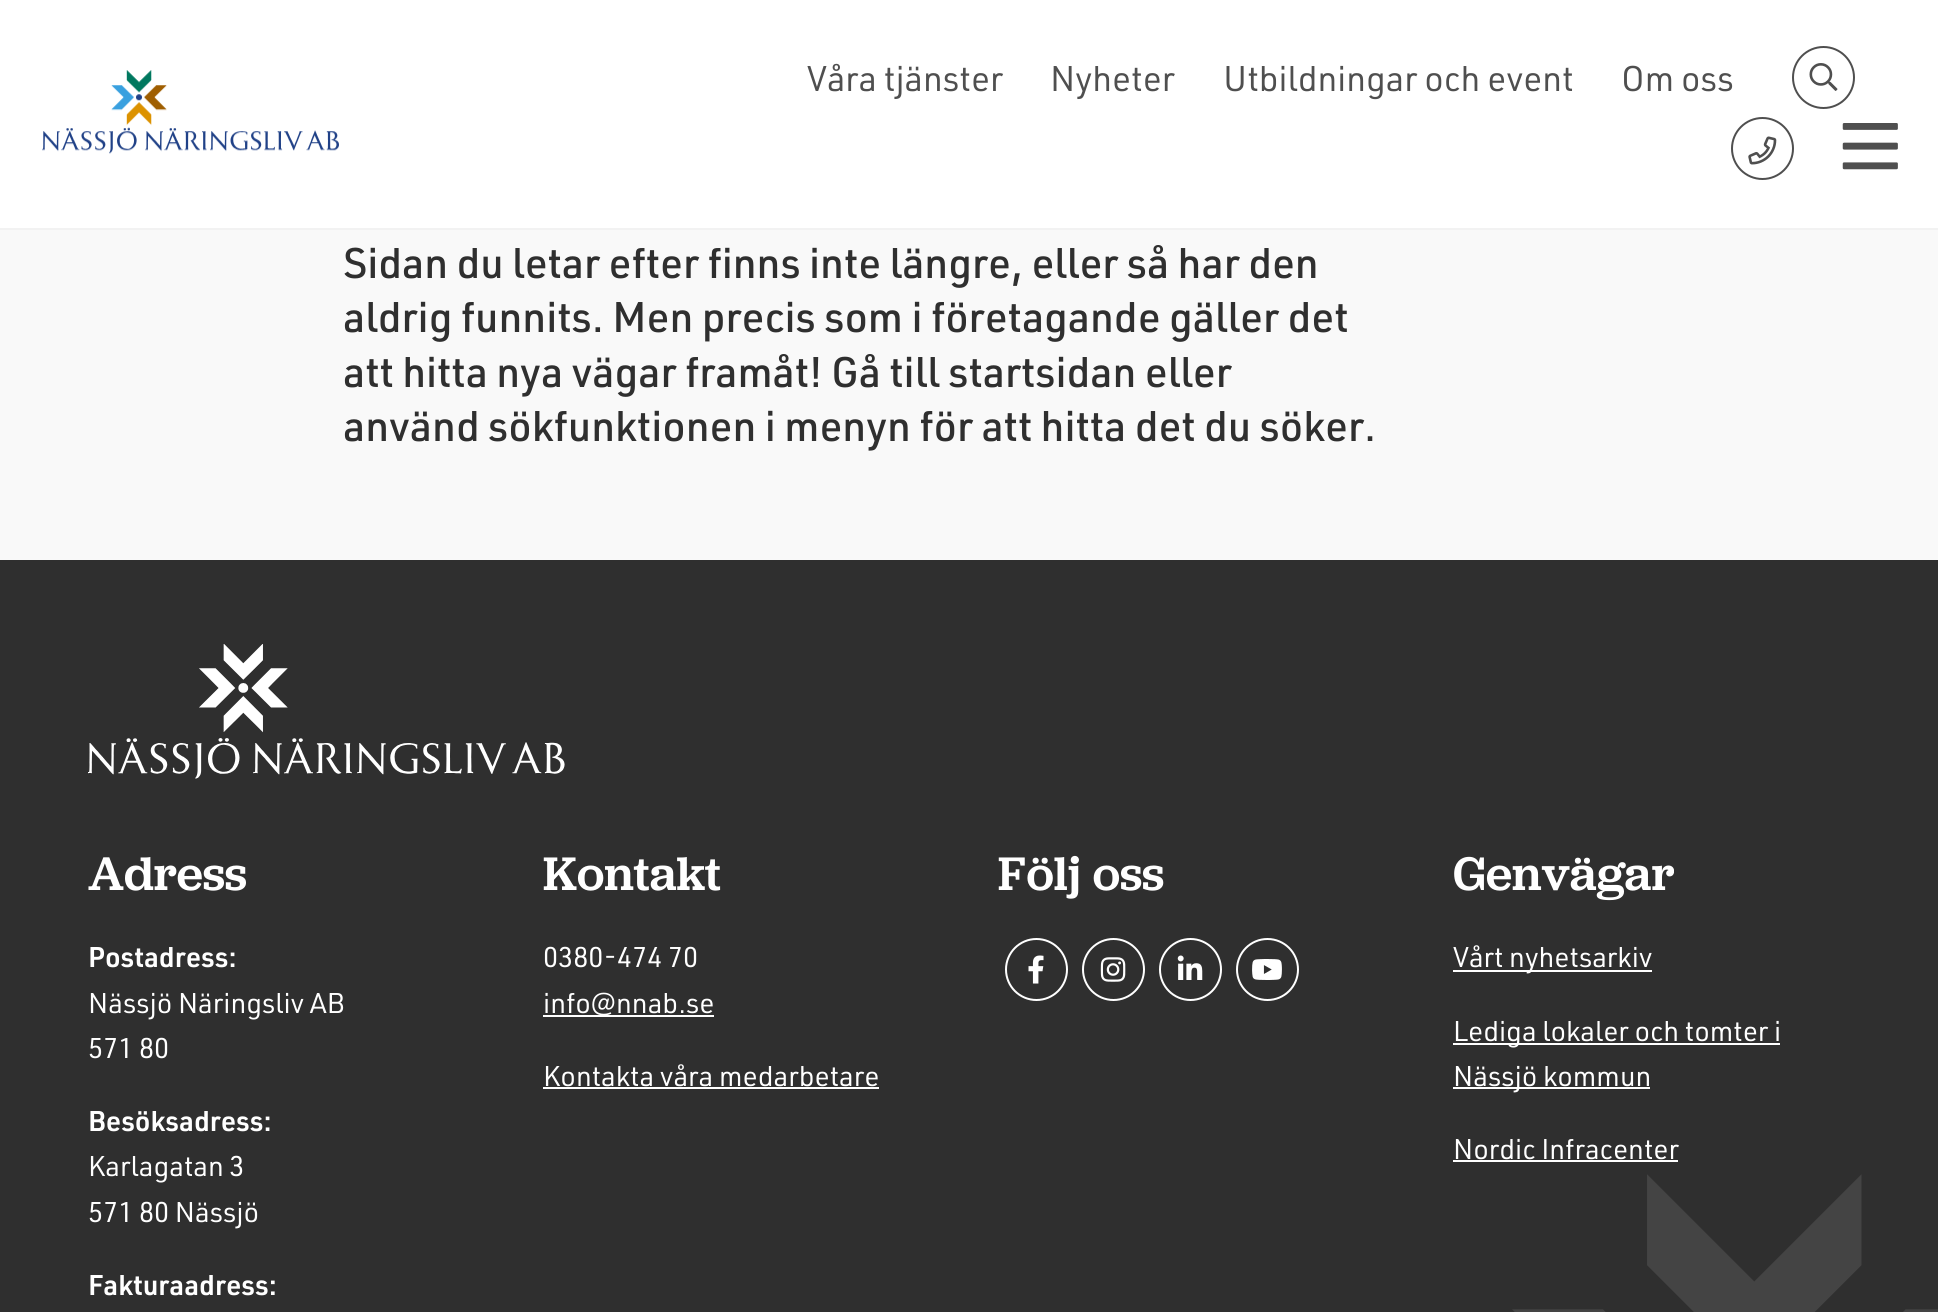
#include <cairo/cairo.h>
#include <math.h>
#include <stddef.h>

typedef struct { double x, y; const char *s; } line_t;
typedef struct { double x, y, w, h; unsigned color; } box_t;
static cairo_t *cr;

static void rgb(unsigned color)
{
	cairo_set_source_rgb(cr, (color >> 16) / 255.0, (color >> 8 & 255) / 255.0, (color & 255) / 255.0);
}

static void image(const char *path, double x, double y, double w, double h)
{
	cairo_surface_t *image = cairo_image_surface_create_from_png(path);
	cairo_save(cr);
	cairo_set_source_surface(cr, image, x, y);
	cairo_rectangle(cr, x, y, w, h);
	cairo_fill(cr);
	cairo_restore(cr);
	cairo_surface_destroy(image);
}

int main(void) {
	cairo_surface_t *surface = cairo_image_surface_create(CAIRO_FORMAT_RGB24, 1938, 1312);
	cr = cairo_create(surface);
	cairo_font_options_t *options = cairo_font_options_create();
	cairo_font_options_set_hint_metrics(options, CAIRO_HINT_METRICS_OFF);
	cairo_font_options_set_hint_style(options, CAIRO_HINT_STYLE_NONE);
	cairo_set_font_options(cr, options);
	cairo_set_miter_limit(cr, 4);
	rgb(0xf9f9f9);
	cairo_paint(cr);
	rgb(0xffffff);
	cairo_rectangle(cr, 0, 0, 1938, 228);
	cairo_fill(cr);
	rgb(0xf2f2f2);
	cairo_rectangle(cr, 0, 228, 1938, 2);
	cairo_fill(cr);
	image("img/1.png", 42, 70, 297, 84);
	cairo_arc(cr, 1823.5, 77.5, 30.5, 0, 2 * M_PI);
	rgb(0x4f4f4f);
	cairo_stroke(cr);
	image("img/2.png", 1809, 63, 29, 28);
	cairo_arc(cr, 1762.5, 148.5, 30.5, 0, 2 * M_PI);
	cairo_stroke(cr);
	image("img/3.png", 1748, 136, 29, 29);
	image("img/4.png", 1842, 123, 56, 47);
	rgb(0x2f2f2f);
	cairo_rectangle(cr, 0, 560, 1938, 752);
	cairo_fill(cr);
	image("img/5.png", 88, 644, 477, 135);
	rgb(0xffffff);
	cairo_rectangle(cr, 543, 1015, 171, 2);
	cairo_fill(cr);
	cairo_rectangle(cr, 543, 1087, 336, 2);
	cairo_fill(cr);
	cairo_arc(cr, 1036.5, 969.5, 30.5, 0, 2 * M_PI);
	cairo_stroke(cr);
	image("img/6.png", 1028, 955, 16, 29);
	cairo_arc(cr, 1113.5, 969.5, 30.5, 0, 2 * M_PI);
	cairo_stroke(cr);
	image("img/7.png", 1100, 957, 26, 25);
	cairo_arc(cr, 1190.5, 969.5, 30.5, 0, 2 * M_PI);
	cairo_stroke(cr);
	image("img/8.png", 1177, 955, 26, 25);
	cairo_arc(cr, 1267.5, 969.5, 30.5, 0, 2 * M_PI);
	cairo_stroke(cr);
	image("img/9.png", 1252, 959, 30, 21);
	{
		static const box_t items[] = {
			{1453, 970, 199, 2, 0xffffff},
			{1453, 1043, 327, 2, 0xffffff},
			{1453, 1087, 197, 2, 0xffffff},
			{1453, 1160, 225, 2, 0xffffff},
		};
		for (size_t i = 0; i < sizeof items / sizeof *items; i++) {
			rgb(items[i].color);
			cairo_rectangle(cr, items[i].x, items[i].y, items[i].w, items[i].h);
			cairo_fill(cr);
		}
	}
	image("img/10.png", 1512, 1174, 426, 138);
	cairo_select_font_face(cr, "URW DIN", CAIRO_FONT_SLANT_NORMAL, CAIRO_FONT_WEIGHT_NORMAL);
	cairo_set_font_size(cr, 35);
	rgb(0x4f4f4f);
	{
		static const line_t items[] = {
			{807, 91, "Våra tjänster"},
			{1050, 91, "Nyheter"},
			{1223, 91, "Utbildningar och event"},
			{1621, 91, "Om oss"},
		};
		for (size_t i = 0; i < sizeof items / sizeof *items; i++) {
			cairo_move_to(cr, items[i].x, items[i].y);
			cairo_show_text(cr, items[i].s);
		}
	}
	cairo_select_font_face(cr, "URW DIN Medium", CAIRO_FONT_SLANT_NORMAL, CAIRO_FONT_WEIGHT_NORMAL);
	cairo_set_font_size(cr, 42);
	rgb(0x2f2f2f);
	{
		static const line_t items[] = {
			{343, 278, "Sidan du letar efter finns inte längre, eller så har den"},
			{343, 332, "aldrig funnits. Men precis som i företagande gäller det"},
			{343, 387, "att hitta nya vägar framåt! Gå till startsidan eller"},
			{343, 441, "använd sökfunktionen i menyn för att hitta det du söker."},
		};
		for (size_t i = 0; i < sizeof items / sizeof *items; i++) {
			cairo_move_to(cr, items[i].x, items[i].y);
			cairo_show_text(cr, items[i].s);
		}
	}
	cairo_select_font_face(cr, "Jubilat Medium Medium", CAIRO_FONT_SLANT_NORMAL, CAIRO_FONT_WEIGHT_NORMAL);
	cairo_set_font_size(cr, 49);
	rgb(0xffffff);
	cairo_move_to(cr, 88, 890);
	cairo_show_text(cr, "Adress");
	cairo_select_font_face(cr, "URW DIN SemiBold", CAIRO_FONT_SLANT_NORMAL, CAIRO_FONT_WEIGHT_NORMAL);
	cairo_set_font_size(cr, 28);
	cairo_move_to(cr, 88, 967);
	cairo_show_text(cr, "Postadress:");
	cairo_select_font_face(cr, "URW DIN", CAIRO_FONT_SLANT_NORMAL, CAIRO_FONT_WEIGHT_NORMAL);
	cairo_move_to(cr, 88, 1013);
	cairo_show_text(cr, "Nässjö Näringsliv AB");
	cairo_move_to(cr, 88, 1058);
	cairo_show_text(cr, "571 80");
	cairo_select_font_face(cr, "URW DIN SemiBold", CAIRO_FONT_SLANT_NORMAL, CAIRO_FONT_WEIGHT_NORMAL);
	cairo_move_to(cr, 88, 1131);
	cairo_show_text(cr, "Besöksadress:");
	cairo_select_font_face(cr, "URW DIN", CAIRO_FONT_SLANT_NORMAL, CAIRO_FONT_WEIGHT_NORMAL);
	cairo_move_to(cr, 88, 1176);
	cairo_show_text(cr, "Karlagatan 3");
	cairo_move_to(cr, 88, 1222);
	cairo_show_text(cr, "571 80 Nässjö");
	cairo_select_font_face(cr, "URW DIN SemiBold", CAIRO_FONT_SLANT_NORMAL, CAIRO_FONT_WEIGHT_NORMAL);
	cairo_move_to(cr, 88, 1295);
	cairo_show_text(cr, "Fakturaadress:");
	cairo_select_font_face(cr, "Jubilat Medium Medium", CAIRO_FONT_SLANT_NORMAL, CAIRO_FONT_WEIGHT_NORMAL);
	cairo_set_font_size(cr, 49);
	cairo_move_to(cr, 543, 890);
	cairo_show_text(cr, "Kontakt");
	cairo_select_font_face(cr, "URW DIN", CAIRO_FONT_SLANT_NORMAL, CAIRO_FONT_WEIGHT_NORMAL);
	cairo_set_font_size(cr, 28);
	{
		static const line_t items[] = {
			{543, 967, "0380-474 70"},
			{543, 1013, "info@nnab.se"},
			{543, 1086, "Kontakta våra medarbetare"},
		};
		for (size_t i = 0; i < sizeof items / sizeof *items; i++) {
			cairo_move_to(cr, items[i].x, items[i].y);
			cairo_show_text(cr, items[i].s);
		}
	}
	cairo_select_font_face(cr, "Jubilat Medium Medium", CAIRO_FONT_SLANT_NORMAL, CAIRO_FONT_WEIGHT_NORMAL);
	cairo_set_font_size(cr, 49);
	cairo_move_to(cr, 998, 890);
	cairo_show_text(cr, "Följ oss");
	cairo_move_to(cr, 1453, 890);
	cairo_show_text(cr, "Genvägar");
	cairo_select_font_face(cr, "URW DIN", CAIRO_FONT_SLANT_NORMAL, CAIRO_FONT_WEIGHT_NORMAL);
	cairo_set_font_size(cr, 28);
	{
		static const line_t items[] = {
			{1453, 967, "Vårt nyhetsarkiv"},
			{1453, 1041, "Lediga lokaler och tomter i"},
			{1453, 1086, "Nässjö kommun"},
			{1453, 1159, "Nordic Infracenter"},
		};
		for (size_t i = 0; i < sizeof items / sizeof *items; i++) {
			cairo_move_to(cr, items[i].x, items[i].y);
			cairo_show_text(cr, items[i].s);
		}
	}
	cairo_surface_write_to_png(surface, "page.png");
	cairo_font_options_destroy(options);
	cairo_destroy(cr);
	cairo_surface_destroy(surface);
	return 0;
}
